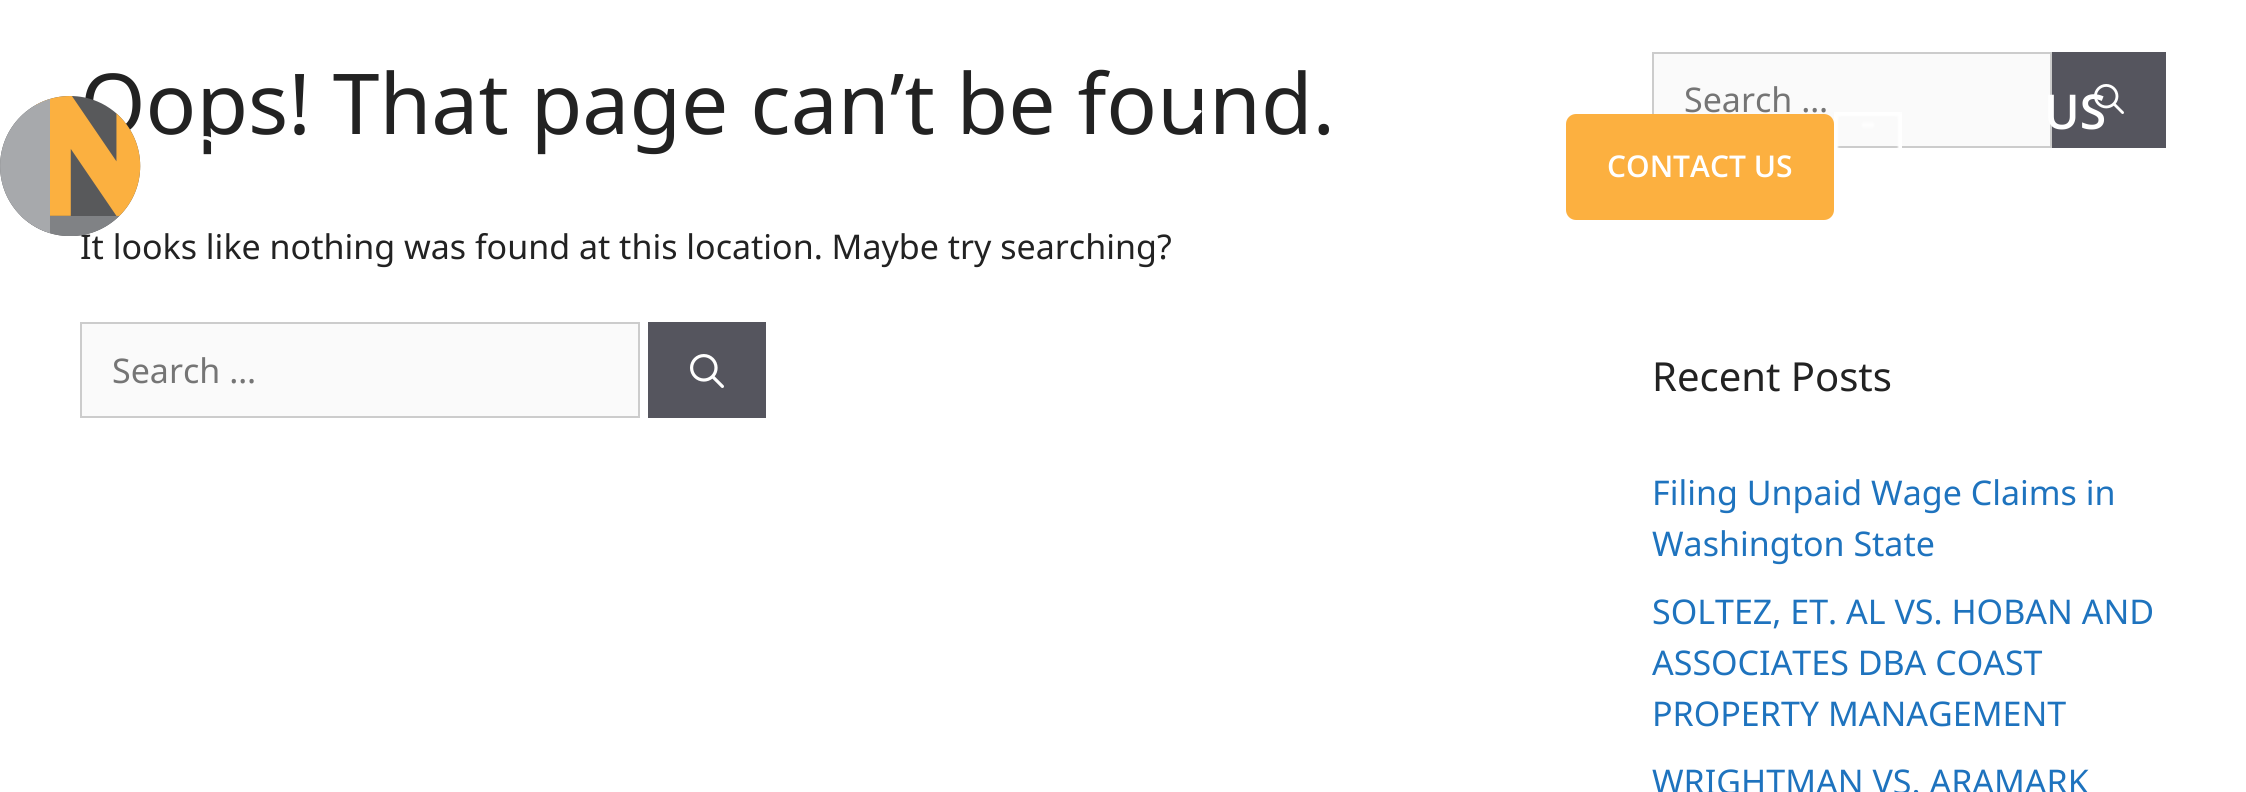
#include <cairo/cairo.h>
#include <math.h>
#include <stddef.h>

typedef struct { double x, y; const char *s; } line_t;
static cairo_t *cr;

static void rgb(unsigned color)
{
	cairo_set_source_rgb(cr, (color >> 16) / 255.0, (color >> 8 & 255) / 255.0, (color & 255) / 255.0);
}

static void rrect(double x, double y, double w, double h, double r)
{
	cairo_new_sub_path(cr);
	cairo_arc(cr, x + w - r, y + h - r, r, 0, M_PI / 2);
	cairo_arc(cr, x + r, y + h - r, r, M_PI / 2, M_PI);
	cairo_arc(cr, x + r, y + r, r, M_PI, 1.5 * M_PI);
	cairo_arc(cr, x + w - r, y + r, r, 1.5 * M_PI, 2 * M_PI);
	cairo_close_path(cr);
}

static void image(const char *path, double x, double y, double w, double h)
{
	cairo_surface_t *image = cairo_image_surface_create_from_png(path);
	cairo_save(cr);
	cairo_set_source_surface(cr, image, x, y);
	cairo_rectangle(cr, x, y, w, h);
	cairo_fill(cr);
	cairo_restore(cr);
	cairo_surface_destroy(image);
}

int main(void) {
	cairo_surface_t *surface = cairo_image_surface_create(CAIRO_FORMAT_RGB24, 2246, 792);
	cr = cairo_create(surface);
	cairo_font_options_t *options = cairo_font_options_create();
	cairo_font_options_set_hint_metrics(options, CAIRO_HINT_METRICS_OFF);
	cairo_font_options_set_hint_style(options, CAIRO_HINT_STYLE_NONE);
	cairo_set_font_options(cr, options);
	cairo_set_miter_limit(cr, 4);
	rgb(0xffffff);
	cairo_paint(cr);
	rgb(0xfafafa);
	cairo_rectangle(cr, 81, 323, 558, 94);
	cairo_fill_preserve(cr);
	rgb(0xcccccc);
	cairo_stroke(cr);
	rgb(0x55555e);
	cairo_rectangle(cr, 648, 322, 118, 96);
	cairo_fill(cr);
	image("img/1.png", 690, 354, 34, 34);
	rgb(0xfafafa);
	cairo_rectangle(cr, 1653, 53, 398, 94);
	cairo_fill_preserve(cr);
	rgb(0xcccccc);
	cairo_stroke(cr);
	rgb(0x55555e);
	cairo_rectangle(cr, 2052, 52, 114, 96);
	cairo_fill(cr);
	image("img/2.png", 2094, 84, 30, 30);
	image("img/5.png", 1834, 112, 68, 36);
	rgb(0xfcb040);
	rrect(1567, 115, 266, 104, 9);
	cairo_fill_preserve(cr);
	cairo_stroke(cr);
	cairo_select_font_face(cr, "Noto Sans", CAIRO_FONT_SLANT_NORMAL, CAIRO_FONT_WEIGHT_NORMAL);
	cairo_set_font_size(cr, 84);
	rgb(0x222222);
	cairo_move_to(cr, 80, 134);
	cairo_show_text(cr, "Oops! That page can’t be found.");
	cairo_set_font_size(cr, 34);
	cairo_move_to(cr, 80, 259);
	cairo_show_text(cr, "It looks like nothing was found at this location. Maybe try searching?");
	rgb(0x757575);
	cairo_move_to(cr, 112, 383);
	cairo_show_text(cr, "Search …");
	cairo_move_to(cr, 1684, 112);
	cairo_show_text(cr, "Search …");
	cairo_set_font_size(cr, 40);
	rgb(0x222222);
	cairo_move_to(cr, 1652, 391);
	cairo_show_text(cr, "Recent Posts");
	cairo_set_font_size(cr, 34);
	rgb(0x1e73be);
	{
		static const line_t items[] = {
			{1652, 505, "Filing Unpaid Wage Claims in"},
			{1652, 556, "Washington State"},
			{1652, 624, "SOLTEZ, ET. AL VS. HOBAN AND"},
			{1652, 675, "ASSOCIATES DBA COAST"},
			{1652, 726, "PROPERTY MANAGEMENT"},
			{1652, 794, "WRIGHTMAN VS. ARAMARK"},
		};
		for (size_t i = 0; i < sizeof items / sizeof *items; i++) {
			cairo_move_to(cr, items[i].x, items[i].y);
			cairo_show_text(cr, items[i].s);
		}
	}
	image("img/3.png", 0, 96, 211, 140);
	image("img/4.png", 1193, 110, 9, 11);
	cairo_select_font_face(cr, "Open Sans SemiBold", CAIRO_FONT_SLANT_NORMAL, CAIRO_FONT_WEIGHT_NORMAL);
	cairo_set_font_size(cr, 48);
	rgb(0xffffff);
	cairo_move_to(cr, 2044, 129);
	cairo_show_text(cr, "US");
	cairo_set_font_size(cr, 30);
	cairo_move_to(cr, 1607, 177);
	cairo_show_text(cr, "CONTACT US");
	cairo_surface_write_to_png(surface, "page.png");
	cairo_font_options_destroy(options);
	cairo_destroy(cr);
	cairo_surface_destroy(surface);
	return 0;
}
